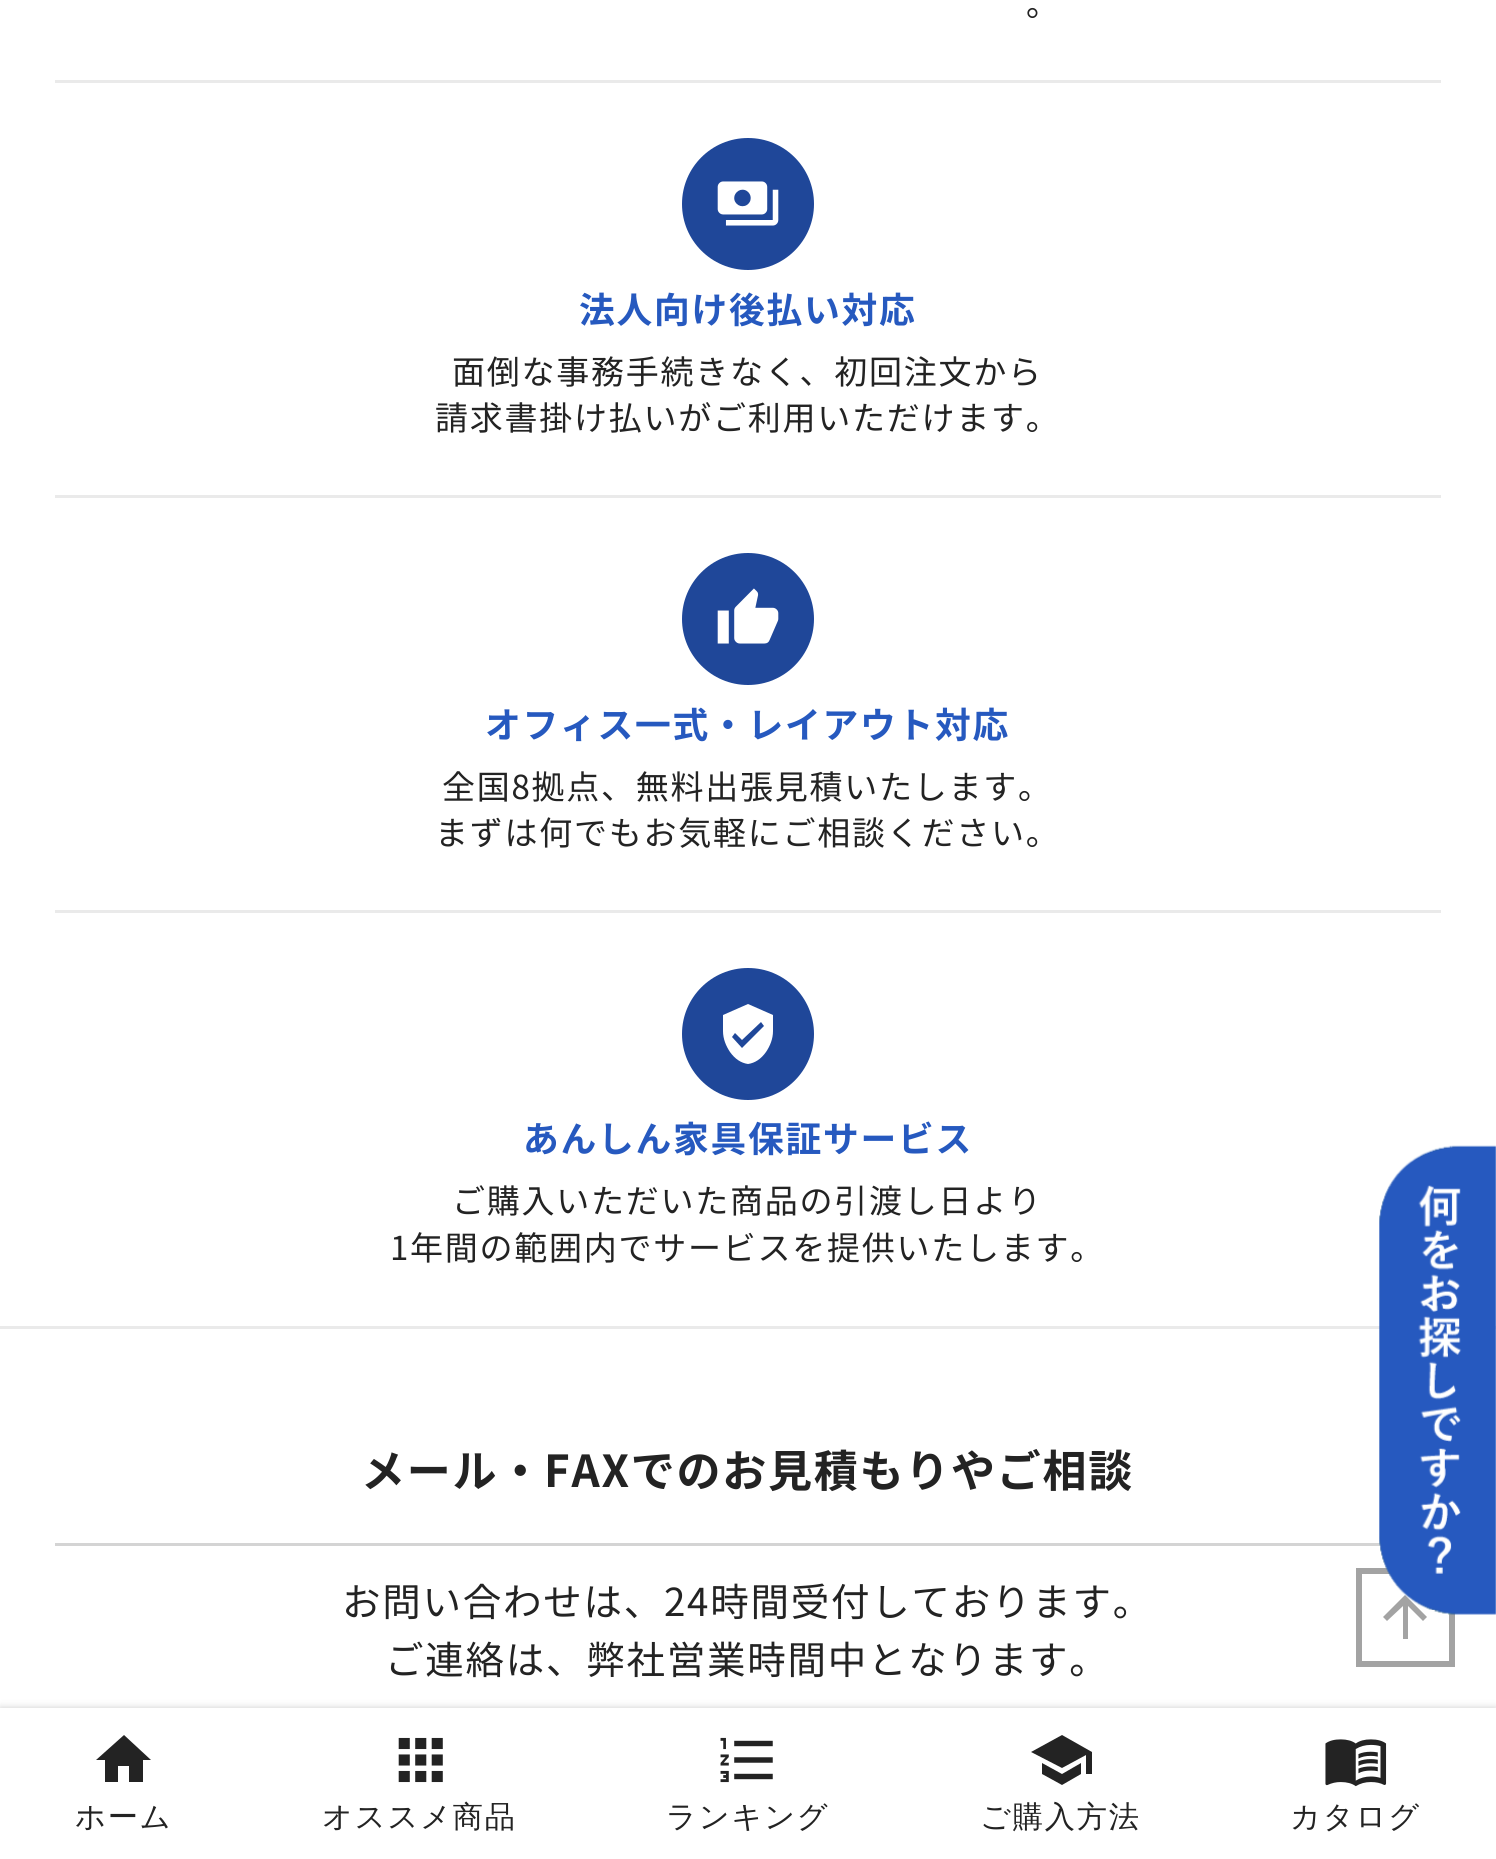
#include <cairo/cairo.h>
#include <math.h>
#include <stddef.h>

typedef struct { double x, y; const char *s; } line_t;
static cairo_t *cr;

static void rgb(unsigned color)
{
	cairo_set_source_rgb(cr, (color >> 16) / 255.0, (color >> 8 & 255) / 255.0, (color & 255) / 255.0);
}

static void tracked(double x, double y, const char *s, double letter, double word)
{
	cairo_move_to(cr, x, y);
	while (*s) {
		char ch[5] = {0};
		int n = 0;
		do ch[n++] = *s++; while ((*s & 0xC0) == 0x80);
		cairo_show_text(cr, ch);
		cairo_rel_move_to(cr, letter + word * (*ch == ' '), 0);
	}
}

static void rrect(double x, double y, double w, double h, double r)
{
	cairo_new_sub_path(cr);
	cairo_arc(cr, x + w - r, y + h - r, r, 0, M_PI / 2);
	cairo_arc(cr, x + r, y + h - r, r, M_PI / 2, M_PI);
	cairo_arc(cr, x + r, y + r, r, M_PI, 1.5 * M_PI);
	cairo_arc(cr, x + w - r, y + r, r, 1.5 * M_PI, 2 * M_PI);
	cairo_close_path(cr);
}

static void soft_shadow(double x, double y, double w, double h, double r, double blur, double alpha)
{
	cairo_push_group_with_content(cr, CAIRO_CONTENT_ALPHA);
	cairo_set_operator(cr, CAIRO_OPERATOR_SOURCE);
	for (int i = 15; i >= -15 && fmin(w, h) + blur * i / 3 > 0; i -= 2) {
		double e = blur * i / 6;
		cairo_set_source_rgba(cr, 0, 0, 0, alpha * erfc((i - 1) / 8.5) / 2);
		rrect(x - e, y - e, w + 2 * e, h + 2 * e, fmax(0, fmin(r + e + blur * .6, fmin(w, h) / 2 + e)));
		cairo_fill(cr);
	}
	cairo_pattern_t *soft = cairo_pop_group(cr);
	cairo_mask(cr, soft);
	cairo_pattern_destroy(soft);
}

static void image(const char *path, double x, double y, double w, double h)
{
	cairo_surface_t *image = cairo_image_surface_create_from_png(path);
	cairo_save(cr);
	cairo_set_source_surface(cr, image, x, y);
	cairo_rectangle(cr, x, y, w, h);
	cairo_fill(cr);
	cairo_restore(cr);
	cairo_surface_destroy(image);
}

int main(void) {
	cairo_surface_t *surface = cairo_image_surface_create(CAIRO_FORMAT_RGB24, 1496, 1859);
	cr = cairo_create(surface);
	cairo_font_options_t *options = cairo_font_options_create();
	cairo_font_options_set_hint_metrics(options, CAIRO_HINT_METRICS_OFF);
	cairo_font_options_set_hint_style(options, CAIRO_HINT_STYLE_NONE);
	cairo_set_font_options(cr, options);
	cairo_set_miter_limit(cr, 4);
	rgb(0xffffff);
	cairo_paint(cr);
	rgb(0xeaeaea);
	cairo_rectangle(cr, 55, 80, 1386, 3);
	cairo_fill(cr);
	cairo_rectangle(cr, 55, 495, 1386, 3);
	cairo_fill(cr);
	rgb(0x1f4799);
	cairo_arc(cr, 748, 204, 66, 0, 2 * M_PI);
	cairo_fill(cr);
	image("img/1.png", 717, 181, 62, 45);
	rgb(0xeaeaea);
	cairo_rectangle(cr, 55, 910, 1386, 3);
	cairo_fill(cr);
	rgb(0x1f4799);
	cairo_arc(cr, 748, 619, 66, 0, 2 * M_PI);
	cairo_fill(cr);
	image("img/2.png", 717, 588, 62, 56);
	cairo_arc(cr, 748, 1034, 66, 0, 2 * M_PI);
	cairo_fill(cr);
	rgb(0xffffff);
	cairo_new_path(cr);
	cairo_move_to(cr, 742, 1048);
	cairo_line_to(cr, 764, 1026);
	cairo_line_to(cr, 761, 1022);
	cairo_line_to(cr, 742, 1040);
	cairo_line_to(cr, 735, 1033);
	cairo_line_to(cr, 732, 1037);
	cairo_close_path(cr);
	cairo_move_to(cr, 748, 1004);
	cairo_line_to(cr, 773, 1015);
	cairo_line_to(cr, 773, 1031);
	cairo_curve_to(cr, 773, 1039, 770, 1046, 766, 1052);
	cairo_curve_to(cr, 761, 1059, 755, 1063, 748, 1064);
	cairo_curve_to(cr, 741, 1063, 735, 1059, 730, 1052);
	cairo_curve_to(cr, 726, 1046, 723, 1039, 723, 1031);
	cairo_line_to(cr, 723, 1015);
	cairo_close_path(cr);
	cairo_fill(cr);
	rgb(0xeaeaea);
	cairo_rectangle(cr, 0, 1326, 1496, 3);
	cairo_fill(cr);
	rgb(0xd4d4d4);
	cairo_rectangle(cr, 55, 1543, 1327, 3);
	cairo_fill(cr);
	cairo_rectangle(cr, 1359, 1571, 93, 93);
	rgb(0xa3a3a3);
	cairo_set_line_width(cr, 6);
	cairo_stroke(cr);
	cairo_new_path(cr);
	cairo_move_to(cr, 1383, 1617);
	cairo_line_to(cr, 1405, 1595);
	cairo_line_to(cr, 1427, 1617);
	cairo_line_to(cr, 1423, 1621);
	cairo_line_to(cr, 1408, 1606);
	cairo_line_to(cr, 1408, 1639);
	cairo_line_to(cr, 1403, 1639);
	cairo_line_to(cr, 1403, 1606);
	cairo_line_to(cr, 1387, 1621);
	cairo_close_path(cr);
	cairo_fill(cr);
	image("img/3.png", 1379, 1145, 117, 470);
	rgb(0x000000);
	soft_shadow(0, 1708, 1496, 151, 0, 4, 0.2);
	rgb(0xffffff);
	cairo_rectangle(cr, 0, 1708, 1496, 151);
	cairo_fill(cr);
	rgb(0x232323);
	cairo_new_path(cr);
	cairo_move_to(cr, 118, 1782);
	cairo_line_to(cr, 105, 1782);
	cairo_line_to(cr, 105, 1760);
	cairo_line_to(cr, 96, 1760);
	cairo_line_to(cr, 124, 1735);
	cairo_line_to(cr, 151, 1760);
	cairo_line_to(cr, 143, 1760);
	cairo_line_to(cr, 143, 1782);
	cairo_line_to(cr, 129, 1782);
	cairo_line_to(cr, 129, 1766);
	cairo_line_to(cr, 118, 1766);
	cairo_close_path(cr);
	cairo_fill(cr);
	image("img/4.png", 398, 1737, 45, 46);
	image("img/5.png", 720, 1737, 53, 46);
	cairo_new_path(cr);
	cairo_move_to(cr, 1062, 1735);
	cairo_line_to(cr, 1092, 1752);
	cairo_line_to(cr, 1092, 1774);
	cairo_line_to(cr, 1086, 1774);
	cairo_line_to(cr, 1086, 1755);
	cairo_line_to(cr, 1062, 1768);
	cairo_line_to(cr, 1031, 1752);
	cairo_close_path(cr);
	cairo_move_to(cr, 1042, 1763);
	cairo_line_to(cr, 1062, 1774);
	cairo_line_to(cr, 1081, 1763);
	cairo_line_to(cr, 1081, 1774);
	cairo_line_to(cr, 1062, 1785);
	cairo_line_to(cr, 1042, 1774);
	cairo_close_path(cr);
	cairo_fill(cr);
	image("img/6.png", 1325, 1739, 62, 48);
	cairo_select_font_face(cr, "Noto Sans JP", CAIRO_FONT_SLANT_NORMAL, CAIRO_FONT_WEIGHT_NORMAL);
	cairo_set_font_size(cr, 33);
	tracked(1026, 16, "。", 1.75, 0);
	cairo_select_font_face(cr, "Noto Sans JP", CAIRO_FONT_SLANT_NORMAL, CAIRO_FONT_WEIGHT_BOLD);
	cairo_set_font_size(cr, 35.75);
	rgb(0x2659bf);
	tracked(579, 323, "法人向け後払い対応", 1.75, 0);
	cairo_select_font_face(cr, "Noto Sans JP", CAIRO_FONT_SLANT_NORMAL, CAIRO_FONT_WEIGHT_NORMAL);
	cairo_set_font_size(cr, 33);
	rgb(0x232323);
	tracked(452, 384, "面倒な事務手続きなく、初回注文から", 1.75, 0);
	tracked(435, 430, "請求書掛け払いがご利用いただけます。", 1.75, 0);
	cairo_select_font_face(cr, "Noto Sans JP", CAIRO_FONT_SLANT_NORMAL, CAIRO_FONT_WEIGHT_BOLD);
	cairo_set_font_size(cr, 35.75);
	rgb(0x2659bf);
	tracked(485, 738, "オフィス一式・レイアウト対応", 1.75, 0);
	cairo_select_font_face(cr, "Noto Sans JP", CAIRO_FONT_SLANT_NORMAL, CAIRO_FONT_WEIGHT_NORMAL);
	cairo_set_font_size(cr, 33);
	rgb(0x232323);
	tracked(442, 799, "全国8拠点、無料出張見積いたします。", 1.75, 0);
	tracked(435, 845, "まずは何でもお気軽にご相談ください。", 1.75, 0);
	cairo_select_font_face(cr, "Noto Sans JP", CAIRO_FONT_SLANT_NORMAL, CAIRO_FONT_WEIGHT_BOLD);
	cairo_set_font_size(cr, 35.75);
	rgb(0x2659bf);
	tracked(523, 1152, "あんしん家具保証サービス", 1.75, 0);
	cairo_select_font_face(cr, "Noto Sans JP", CAIRO_FONT_SLANT_NORMAL, CAIRO_FONT_WEIGHT_NORMAL);
	cairo_set_font_size(cr, 33);
	rgb(0x232323);
	tracked(452, 1213, "ご購入いただいた商品の引渡し日より", 1.75, 0);
	tracked(390, 1260, "1年間の範囲内でサービスを提供いたします。", 1.75, 0);
	cairo_select_font_face(cr, "Noto Sans JP", CAIRO_FONT_SLANT_NORMAL, CAIRO_FONT_WEIGHT_BOLD);
	cairo_set_font_size(cr, 44);
	tracked(361, 1487, "メール・FAXでのお見積もりやご相談", 1.75, 0);
	cairo_select_font_face(cr, "Noto Sans JP", CAIRO_FONT_SLANT_NORMAL, CAIRO_FONT_WEIGHT_NORMAL);
	cairo_set_font_size(cr, 38.5);
	tracked(342, 1616, "お問い合わせは、24時間受付しております。", 1.75, 0);
	tracked(385, 1674, "ご連絡は、弊社営業時間中となります。", 1.75, 0);
	cairo_select_font_face(cr, "WenQuanYi Zen Hei Medium", CAIRO_FONT_SLANT_NORMAL, CAIRO_FONT_WEIGHT_NORMAL);
	cairo_set_font_size(cr, 30.25);
	{
		static const line_t items[] = {
			{75, 1827, "ホーム"},
			{322, 1827, "オススメ商品"},
			{666, 1827, "ランキング"},
			{980, 1827, "ご購入方法"},
			{1290, 1827, "カタログ"},
		};
		for (size_t i = 0; i < sizeof items / sizeof *items; i++) {
			tracked(items[i].x, items[i].y, items[i].s, 1.75, 0);
		}
	}
	cairo_surface_write_to_png(surface, "page.png");
	cairo_font_options_destroy(options);
	cairo_destroy(cr);
	cairo_surface_destroy(surface);
	return 0;
}
